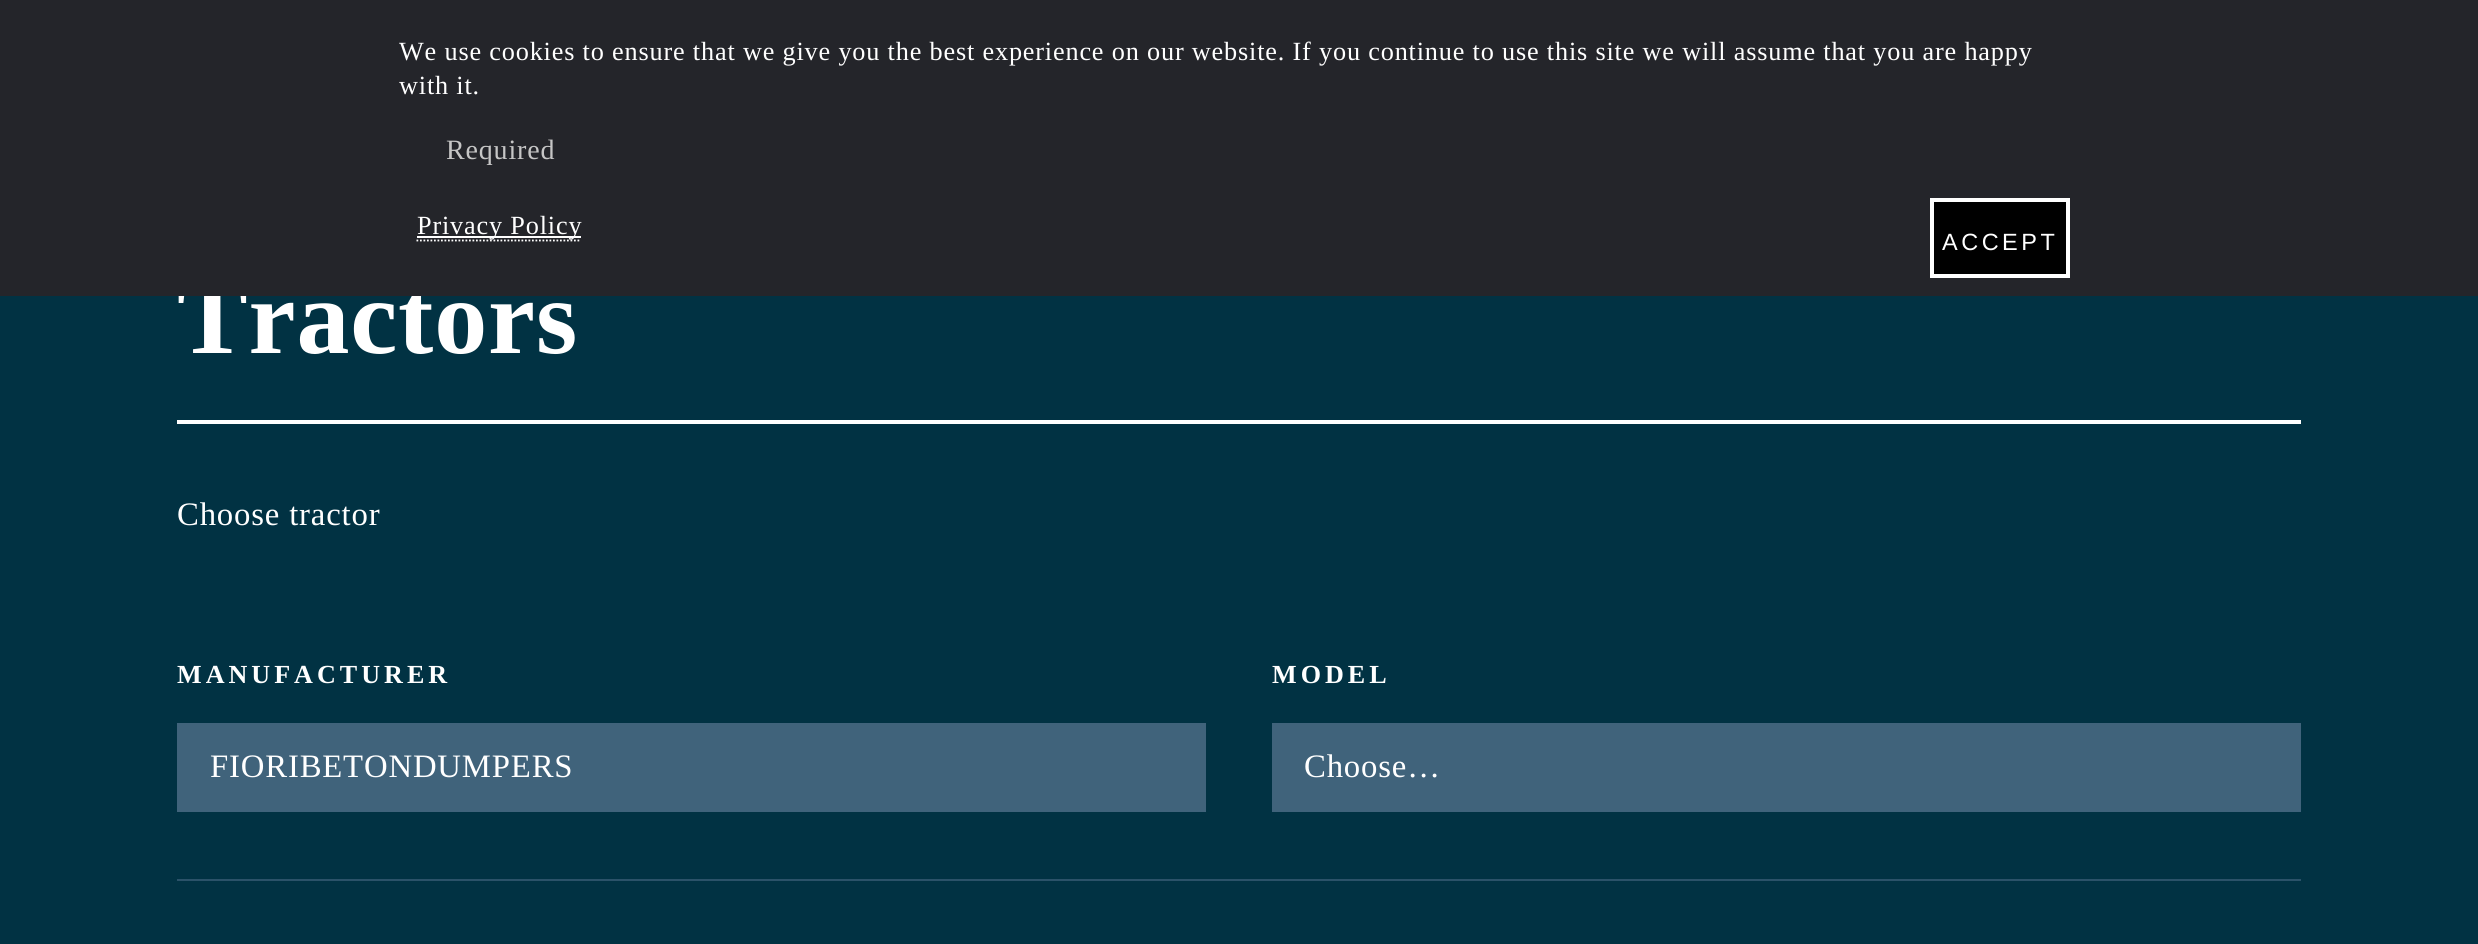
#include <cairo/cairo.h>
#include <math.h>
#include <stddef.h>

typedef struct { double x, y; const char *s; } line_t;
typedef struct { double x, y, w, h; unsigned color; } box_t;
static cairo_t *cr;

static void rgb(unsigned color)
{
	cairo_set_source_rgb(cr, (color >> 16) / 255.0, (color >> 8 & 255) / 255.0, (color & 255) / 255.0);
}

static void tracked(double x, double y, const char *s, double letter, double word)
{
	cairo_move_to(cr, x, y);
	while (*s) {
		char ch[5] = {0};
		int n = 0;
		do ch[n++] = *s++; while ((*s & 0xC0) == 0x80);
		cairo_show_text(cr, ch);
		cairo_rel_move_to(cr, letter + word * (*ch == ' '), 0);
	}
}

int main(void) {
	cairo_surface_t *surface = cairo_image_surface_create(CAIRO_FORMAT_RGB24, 2478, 944);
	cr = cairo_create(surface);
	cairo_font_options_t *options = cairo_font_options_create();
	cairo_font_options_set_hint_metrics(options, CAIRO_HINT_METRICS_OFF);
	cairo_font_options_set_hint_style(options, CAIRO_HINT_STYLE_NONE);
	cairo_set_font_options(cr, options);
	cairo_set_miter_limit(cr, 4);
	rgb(0x013243);
	cairo_paint(cr);
	{
		static const box_t items[] = {
			{177, 420, 2124, 4, 0xffffff},
			{177, 723, 1029, 89, 0x40637b},
			{1272, 723, 1029, 89, 0x40637b},
			{177, 879, 2124, 2, 0x2b5269},
		};
		for (size_t i = 0; i < sizeof items / sizeof *items; i++) {
			rgb(items[i].color);
			cairo_rectangle(cr, items[i].x, items[i].y, items[i].w, items[i].h);
			cairo_fill(cr);
		}
	}
	cairo_select_font_face(cr, "Liberation Serif", CAIRO_FONT_SLANT_NORMAL, CAIRO_FONT_WEIGHT_BOLD);
	cairo_set_font_size(cr, 106);
	rgb(0xffffff);
	tracked(177, 353, "Tractors", 0.82, 0);
	rgb(0x24252a);
	cairo_rectangle(cr, 0, 0, 2478, 296);
	cairo_fill(cr);
	cairo_select_font_face(cr, "Liberation Serif", CAIRO_FONT_SLANT_NORMAL, CAIRO_FONT_WEIGHT_NORMAL);
	cairo_set_font_size(cr, 28);
	rgb(0xc6c6c6);
	tracked(446, 159, "Required", 0.82, 0);
	rgb(0xffffff);
	cairo_rectangle(cr, 417, 236, 164, 2);
	cairo_fill(cr);
	cairo_new_path(cr);
	cairo_move_to(cr, 416.5, 240.5);
	cairo_line_to(cr, 581, 240.5);
	cairo_set_line_width(cr, 1.8);
	cairo_set_dash(cr, (double[]){1.75, 1.75}, 2, 0);
	cairo_stroke(cr);
	cairo_set_font_size(cr, 26.25);
	{
		static const line_t items[] = {
			{417, 234, "Privacy Policy"},
			{399, 94, "with it."},
			{399, 60, "We use cookies to ensure that we give you the best experience on our website. If you continue to use this site we will assume that you are happy"},
		};
		for (size_t i = 0; i < sizeof items / sizeof *items; i++) {
			tracked(items[i].x, items[i].y, items[i].s, 0.82, 0);
		}
	}
	rgb(0x000000);
	cairo_rectangle(cr, 1932, 200, 136, 76);
	cairo_fill_preserve(cr);
	rgb(0xffffff);
	cairo_set_line_width(cr, 4);
	cairo_set_dash(cr, NULL, 0, 0);
	cairo_stroke(cr);
	cairo_select_font_face(cr, "Liberation Sans", CAIRO_FONT_SLANT_NORMAL, CAIRO_FONT_WEIGHT_NORMAL);
	cairo_set_font_size(cr, 23.5);
	tracked(1942, 250, "ACCEPT", 3.5, 0);
	cairo_select_font_face(cr, "Liberation Serif", CAIRO_FONT_SLANT_NORMAL, CAIRO_FONT_WEIGHT_NORMAL);
	cairo_set_font_size(cr, 32.75);
	tracked(177, 525, "Choose tractor", 0.82, 0);
	cairo_select_font_face(cr, "Liberation Serif", CAIRO_FONT_SLANT_NORMAL, CAIRO_FONT_WEIGHT_BOLD);
	cairo_set_font_size(cr, 26.1);
	tracked(177, 683, "MANUFACTURER", 4, 0);
	cairo_select_font_face(cr, "Liberation Serif", CAIRO_FONT_SLANT_NORMAL, CAIRO_FONT_WEIGHT_NORMAL);
	cairo_set_font_size(cr, 32.75);
	tracked(210, 777, "FIORIBETONDUMPERS", 0.82, 0);
	cairo_select_font_face(cr, "Liberation Serif", CAIRO_FONT_SLANT_NORMAL, CAIRO_FONT_WEIGHT_BOLD);
	cairo_set_font_size(cr, 26.1);
	tracked(1272, 683, "MODEL", 4, 0);
	cairo_select_font_face(cr, "Liberation Serif", CAIRO_FONT_SLANT_NORMAL, CAIRO_FONT_WEIGHT_NORMAL);
	cairo_set_font_size(cr, 32.75);
	tracked(1304, 777, "Choose…", 0.82, 0);
	cairo_surface_write_to_png(surface, "page.png");
	cairo_font_options_destroy(options);
	cairo_destroy(cr);
	cairo_surface_destroy(surface);
	return 0;
}
